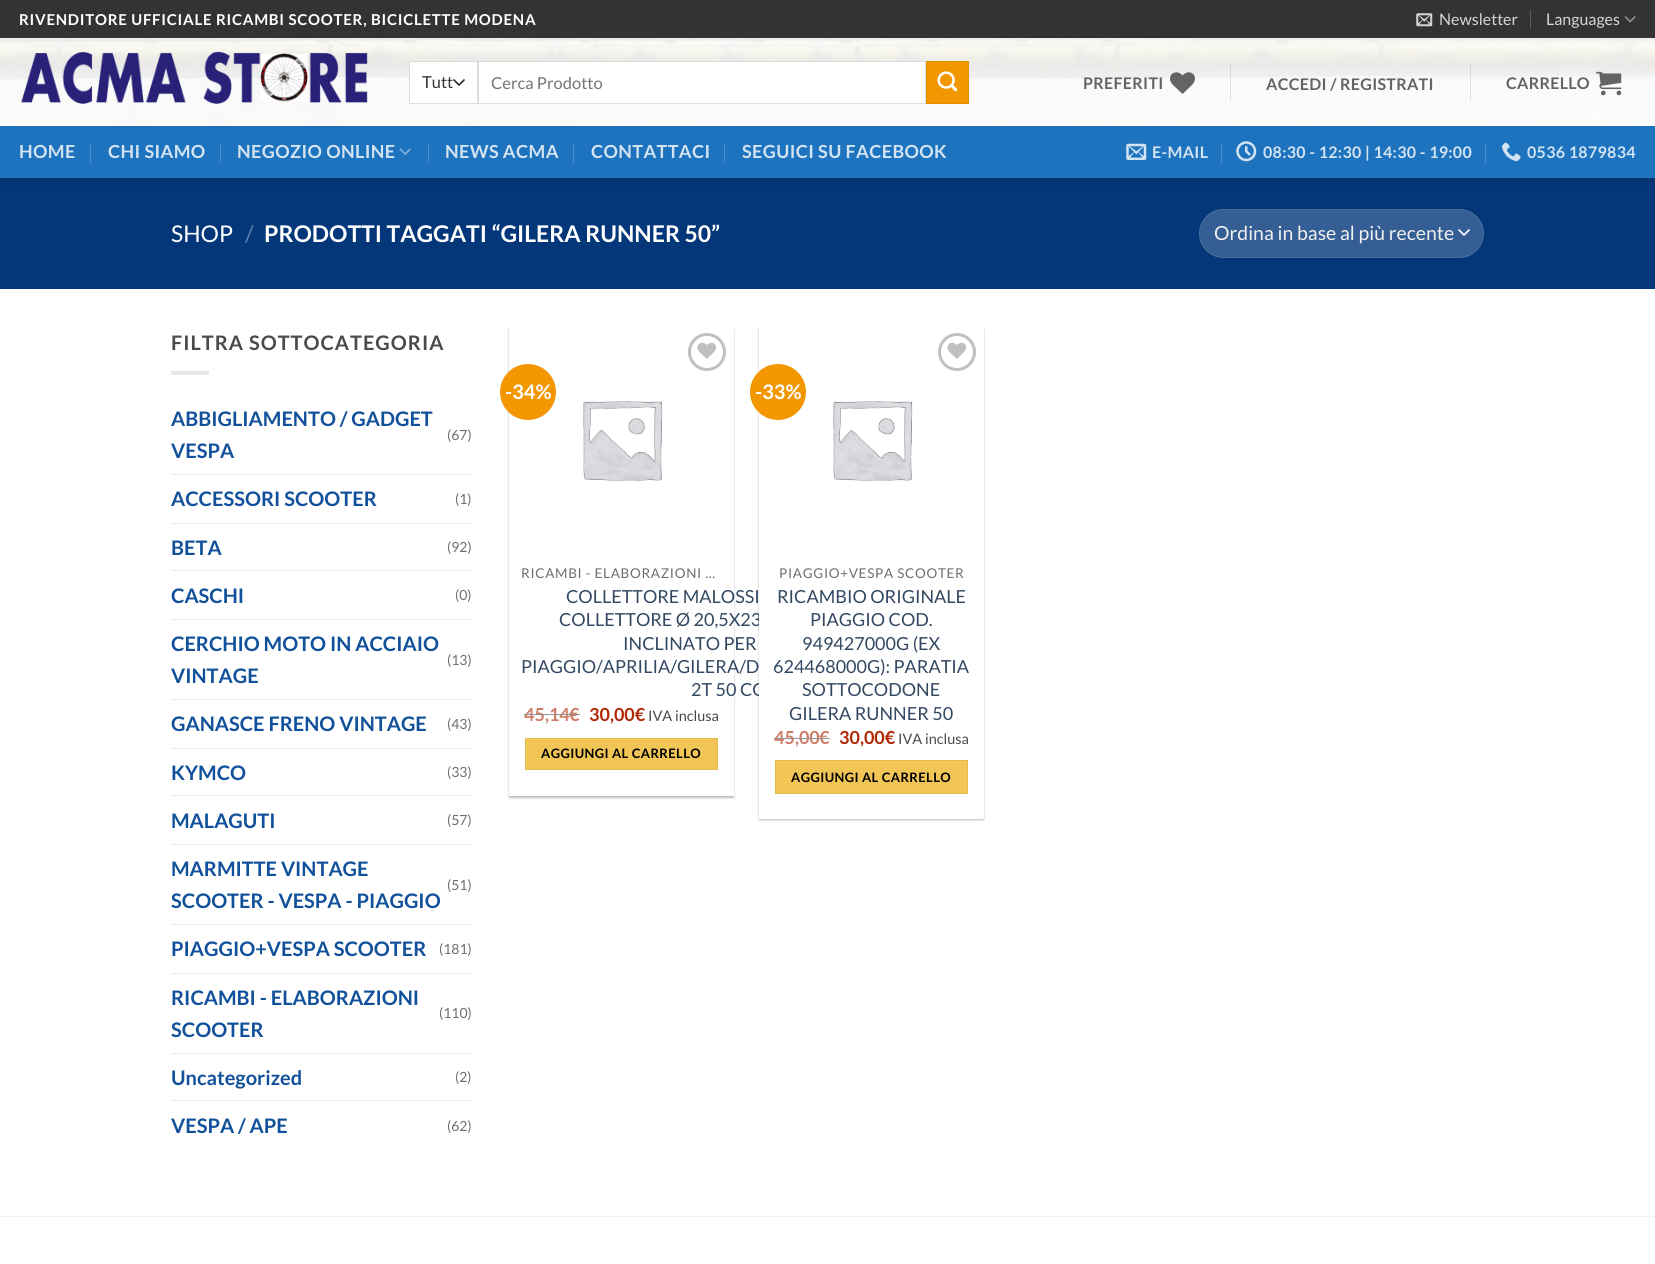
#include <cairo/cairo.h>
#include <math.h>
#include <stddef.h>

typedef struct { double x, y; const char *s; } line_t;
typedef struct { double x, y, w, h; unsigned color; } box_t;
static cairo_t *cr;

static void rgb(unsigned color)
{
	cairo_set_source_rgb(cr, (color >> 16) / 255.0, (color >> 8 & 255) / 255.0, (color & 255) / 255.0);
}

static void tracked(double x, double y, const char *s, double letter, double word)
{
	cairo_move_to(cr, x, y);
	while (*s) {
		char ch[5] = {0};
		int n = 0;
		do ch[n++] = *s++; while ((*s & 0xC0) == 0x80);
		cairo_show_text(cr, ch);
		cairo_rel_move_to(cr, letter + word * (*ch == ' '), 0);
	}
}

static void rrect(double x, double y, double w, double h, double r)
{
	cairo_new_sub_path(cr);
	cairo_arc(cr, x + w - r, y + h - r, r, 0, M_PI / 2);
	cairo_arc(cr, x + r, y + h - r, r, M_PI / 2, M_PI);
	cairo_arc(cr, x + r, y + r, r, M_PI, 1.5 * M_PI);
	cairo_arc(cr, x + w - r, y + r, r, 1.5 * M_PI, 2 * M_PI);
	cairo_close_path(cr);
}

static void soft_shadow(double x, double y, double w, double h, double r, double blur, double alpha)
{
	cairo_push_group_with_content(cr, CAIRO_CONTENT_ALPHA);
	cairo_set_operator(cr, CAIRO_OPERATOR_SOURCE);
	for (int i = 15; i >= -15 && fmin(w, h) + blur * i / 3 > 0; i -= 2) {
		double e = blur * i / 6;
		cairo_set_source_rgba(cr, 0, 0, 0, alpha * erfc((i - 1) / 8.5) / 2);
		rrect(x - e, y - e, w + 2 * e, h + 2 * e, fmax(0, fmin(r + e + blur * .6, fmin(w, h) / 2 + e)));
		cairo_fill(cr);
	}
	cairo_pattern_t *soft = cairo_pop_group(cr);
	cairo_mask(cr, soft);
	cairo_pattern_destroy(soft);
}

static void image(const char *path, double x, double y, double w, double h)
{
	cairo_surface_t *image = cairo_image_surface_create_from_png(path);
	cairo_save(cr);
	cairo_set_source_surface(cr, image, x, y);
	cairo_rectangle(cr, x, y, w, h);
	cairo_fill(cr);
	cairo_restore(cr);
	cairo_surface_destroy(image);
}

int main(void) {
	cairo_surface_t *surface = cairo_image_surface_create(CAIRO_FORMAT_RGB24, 1655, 1264);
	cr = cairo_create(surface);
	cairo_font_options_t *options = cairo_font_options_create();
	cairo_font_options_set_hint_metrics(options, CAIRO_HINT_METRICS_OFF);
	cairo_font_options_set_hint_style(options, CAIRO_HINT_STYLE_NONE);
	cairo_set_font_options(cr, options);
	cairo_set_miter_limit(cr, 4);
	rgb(0xffffff);
	cairo_paint(cr);
	rgb(0x033779);
	cairo_rectangle(cr, 0, 178, 1655, 111);
	cairo_fill(cr);
	rgb(0x000000);
	soft_shadow(1, 1, 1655, 178, 0, 6, 0.15);
	rgb(0x333333);
	cairo_rectangle(cr, 0, 0, 1655, 38);
	cairo_fill(cr);
	image("img/1.png", 1416, 13, 17, 14);
	rgb(0x5c5c5c);
	cairo_rectangle(cr, 1530, 10, 1, 19);
	cairo_fill(cr);
	image("img/2.png", 1624, 16, 12, 7);
	image("img/3.png", 0, 38, 1655, 88);
	cairo_set_source_rgba(cr, 1, 1, 1, 0.9);
	cairo_rectangle(cr, 0, 38, 1655, 88);
	cairo_fill(cr);
	image("img/4.png", 21, 51, 347, 53);
	rgb(0xffffff);
	cairo_rectangle(cr, 410, 62, 67, 41);
	cairo_fill(cr);
	cairo_new_path(cr);
	cairo_move_to(cr, 454, 80);
	cairo_line_to(cr, 459, 85);
	cairo_line_to(cr, 464, 80);
	rgb(0x333333);
	cairo_set_line_width(cr, 1.7);
	cairo_set_line_cap(cr, CAIRO_LINE_CAP_ROUND);
	cairo_set_line_join(cr, CAIRO_LINE_JOIN_ROUND);
	cairo_stroke(cr);
	cairo_rectangle(cr, 409.5, 61.5, 68, 42);
	rgb(0xdddddd);
	cairo_set_line_width(cr, 1);
	cairo_set_line_cap(cr, CAIRO_LINE_CAP_BUTT);
	cairo_set_line_join(cr, CAIRO_LINE_JOIN_MITER);
	cairo_stroke(cr);
	rgb(0xffffff);
	cairo_rectangle(cr, 478.5, 61.5, 447, 42);
	cairo_fill_preserve(cr);
	rgb(0xdddddd);
	cairo_stroke(cr);
	rgb(0xf39700);
	cairo_rectangle(cr, 926.5, 61.5, 42, 42);
	cairo_fill_preserve(cr);
	rgb(0xe78f00);
	cairo_stroke(cr);
	image("img/5.png", 937, 71, 21, 21);
	image("img/6.png", 1170, 72, 25, 22);
	cairo_set_source_rgba(cr, 0, 0, 0, 0.1);
	cairo_rectangle(cr, 1230, 64, 1, 37);
	cairo_fill(cr);
	cairo_rectangle(cr, 1470, 64, 1, 37);
	cairo_fill(cr);
	image("img/7.png", 1596, 71, 26, 25);
	{
		static const box_t items[] = {
			{0, 126, 1655, 52, 0x1e73be},
			{19, 126, 1617, 1, 0x226fb2},
			{90, 144, 1, 19, 0x4b8fcb},
			{220, 144, 1, 19, 0x4b8fcb},
		};
		for (size_t i = 0; i < sizeof items / sizeof *items; i++) {
			rgb(items[i].color);
			cairo_rectangle(cr, items[i].x, items[i].y, items[i].w, items[i].h);
			cairo_fill(cr);
		}
	}
	image("img/8.png", 399, 148, 12, 7);
	{
		static const box_t items[] = {
			{428, 144, 1, 19, 0x4b8fcb},
			{573, 144, 1, 19, 0x4b8fcb},
			{724, 144, 1, 19, 0x4b8fcb},
		};
		for (size_t i = 0; i < sizeof items / sizeof *items; i++) {
			rgb(items[i].color);
			cairo_rectangle(cr, items[i].x, items[i].y, items[i].w, items[i].h);
			cairo_fill(cr);
		}
	}
	image("img/9.png", 1126, 143, 21, 17);
	cairo_rectangle(cr, 1221, 144, 1, 19);
	cairo_fill(cr);
	image("img/10.png", 1236, 141, 21, 21);
	cairo_rectangle(cr, 1485, 144, 1, 19);
	cairo_fill(cr);
	image("img/11.png", 1501, 142, 20, 20);
	rgb(0x355f94);
	rrect(1199, 209, 285, 49, 24.5);
	cairo_fill(cr);
	cairo_new_path(cr);
	cairo_move_to(cr, 1459, 230);
	cairo_line_to(cr, 1464, 235);
	cairo_line_to(cr, 1469, 230);
	rgb(0xffffff);
	cairo_set_line_width(cr, 1.7);
	cairo_set_line_cap(cr, CAIRO_LINE_CAP_ROUND);
	cairo_set_line_join(cr, CAIRO_LINE_JOIN_ROUND);
	cairo_stroke(cr);
	rrect(1199.5, 209.5, 284, 48, 24);
	cairo_set_source_rgba(cr, 1, 1, 1, 0.09);
	cairo_set_line_width(cr, 1);
	cairo_set_line_cap(cr, CAIRO_LINE_CAP_BUTT);
	cairo_set_line_join(cr, CAIRO_LINE_JOIN_MITER);
	cairo_stroke(cr);
	{
		static const box_t items[] = {
			{171, 371, 38, 4, 0xe6e6e6},
			{171, 474, 300, 1, 0xececec},
			{171, 523, 300, 1, 0xececec},
			{171, 570, 300, 1, 0xececec},
			{171, 619, 300, 1, 0xececec},
			{171, 699, 300, 1, 0xececec},
			{171, 748, 300, 1, 0xececec},
			{171, 795, 300, 1, 0xececec},
			{171, 844, 300, 1, 0xececec},
			{171, 924, 300, 1, 0xececec},
			{171, 973, 300, 1, 0xececec},
			{171, 1053, 300, 1, 0xececec},
			{171, 1100, 300, 1, 0xececec},
		};
		for (size_t i = 0; i < sizeof items / sizeof *items; i++) {
			rgb(items[i].color);
			cairo_rectangle(cr, items[i].x, items[i].y, items[i].w, items[i].h);
			cairo_fill(cr);
		}
	}
	rgb(0x000000);
	soft_shadow(509, 328, 225, 470, 0, 1, 0.24);
	soft_shadow(511, 330, 220, 465, 0, 2, 0.12);
	rgb(0xffffff);
	cairo_rectangle(cr, 509, 326, 225, 470);
	cairo_fill(cr);
	rgb(0xf39700);
	cairo_arc(cr, 528, 392, 28, 0, 2 * M_PI);
	cairo_fill(cr);
	cairo_arc(cr, 707, 352, 17.5, 0, 2 * M_PI);
	rgb(0xc0c0c0);
	cairo_set_line_width(cr, 3);
	cairo_stroke(cr);
	image("img/12.png", 697, 342, 20, 17);
	image("img/13.png", 583, 401, 80, 80);
	rgb(0xf1c556);
	cairo_rectangle(cr, 525.5, 738.5, 192, 31);
	cairo_fill_preserve(cr);
	rgb(0xe5bb52);
	cairo_set_line_width(cr, 1);
	cairo_stroke(cr);
	cairo_save(cr);
	cairo_rectangle(cr, 526, 739, 190, 30);
	cairo_clip(cr);
	rgb(0xf2cb67);
	cairo_set_fill_rule(cr, CAIRO_FILL_RULE_EVEN_ODD);
	cairo_new_path(cr);
	cairo_move_to(cr, 354, 615);
	cairo_line_to(cr, 889, 615);
	cairo_line_to(cr, 889, 892);
	cairo_line_to(cr, 354, 892);
	cairo_close_path(cr);
	cairo_move_to(cr, 479, 740);
	cairo_line_to(cr, 766, 740);
	cairo_line_to(cr, 766, 770);
	cairo_line_to(cr, 479, 770);
	cairo_close_path(cr);
	cairo_fill(cr);
	cairo_restore(cr);
	rgb(0x000000);
	soft_shadow(759, 328, 225, 492, 0, 1, 0.24);
	soft_shadow(761, 330, 220, 488, 0, 2, 0.12);
	rgb(0xf2f2f2);
	cairo_rectangle(cr, 0, 1216, 1655, 1);
	cairo_fill(cr);
	cairo_select_font_face(cr, "Lato", CAIRO_FONT_SLANT_NORMAL, CAIRO_FONT_WEIGHT_BOLD);
	cairo_set_font_size(cr, 15);
	rgb(0xffffff);
	tracked(19, 25, "RIVENDITORE UFFICIALE RICAMBI SCOOTER, BICICLETTE MODENA", 0.75, 0);
	cairo_select_font_face(cr, "Lato", CAIRO_FONT_SLANT_NORMAL, CAIRO_FONT_WEIGHT_NORMAL);
	cairo_set_font_size(cr, 16);
	rgb(0xd6d6d6);
	cairo_move_to(cr, 1439, 25);
	cairo_show_text(cr, "Newsletter");
	cairo_move_to(cr, 1546, 25);
	cairo_show_text(cr, "Languages");
	cairo_set_font_size(cr, 16.5);
	rgb(0x333333);
	cairo_move_to(cr, 422, 88);
	cairo_show_text(cr, "Tutt");
	rgb(0x757575);
	cairo_move_to(cr, 491, 89);
	cairo_show_text(cr, "Cerca Prodotto");
	cairo_select_font_face(cr, "Lato", CAIRO_FONT_SLANT_NORMAL, CAIRO_FONT_WEIGHT_BOLD);
	cairo_set_font_size(cr, 16);
	rgb(0x646464);
	{
		static const line_t items[] = {
			{1083, 89, "PREFERITI"},
			{1266, 90, "ACCEDI / REGISTRATI"},
			{1506, 89, "CARRELLO"},
		};
		for (size_t i = 0; i < sizeof items / sizeof *items; i++) {
			tracked(items[i].x, items[i].y, items[i].s, 0.3, 0);
		}
	}
	cairo_set_font_size(cr, 18);
	rgb(0xd2e3f2);
	{
		static const line_t items[] = {
			{19, 158, "HOME"},
			{108, 158, "CHI SIAMO"},
			{237, 158, "NEGOZIO ONLINE"},
			{445, 158, "NEWS ACMA"},
			{591, 158, "CONTATTACI"},
			{742, 158, "SEGUICI SU FACEBOOK"},
		};
		for (size_t i = 0; i < sizeof items / sizeof *items; i++) {
			tracked(items[i].x, items[i].y, items[i].s, 0.4, 0);
		}
	}
	cairo_set_font_size(cr, 16);
	{
		static const line_t items[] = {
			{1152, 158, "E-MAIL"},
			{1263, 158, "08:30 - 12:30 | 14:30 - 19:00"},
			{1527, 158, "0536 1879834"},
		};
		for (size_t i = 0; i < sizeof items / sizeof *items; i++) {
			tracked(items[i].x, items[i].y, items[i].s, 0.3, 0);
		}
	}
	cairo_select_font_face(cr, "Lato", CAIRO_FONT_SLANT_NORMAL, CAIRO_FONT_WEIGHT_NORMAL);
	cairo_set_font_size(cr, 23);
	rgb(0xffffff);
	cairo_move_to(cr, 171, 242);
	cairo_show_text(cr, "SHOP");
	rgb(0x5b7da8);
	cairo_move_to(cr, 245, 242);
	cairo_show_text(cr, "/");
	cairo_select_font_face(cr, "Lato", CAIRO_FONT_SLANT_NORMAL, CAIRO_FONT_WEIGHT_BOLD);
	rgb(0xffffff);
	cairo_move_to(cr, 264, 242);
	cairo_show_text(cr, "PRODOTTI TAGGATI “GILERA RUNNER 50”");
	cairo_select_font_face(cr, "Lato", CAIRO_FONT_SLANT_NORMAL, CAIRO_FONT_WEIGHT_NORMAL);
	cairo_set_font_size(cr, 19.4);
	rgb(0xf1f1f1);
	cairo_move_to(cr, 1214, 240);
	cairo_show_text(cr, "Ordina in base al più recente");
	cairo_select_font_face(cr, "Lato", CAIRO_FONT_SLANT_NORMAL, CAIRO_FONT_WEIGHT_BOLD);
	cairo_set_font_size(cr, 20);
	rgb(0x4a4a4a);
	tracked(171, 350, "FILTRA SOTTOCATEGORIA", 1, 0);
	rgb(0x11519b);
	cairo_move_to(cr, 171, 426);
	cairo_show_text(cr, "ABBIGLIAMENTO / GADGET");
	cairo_move_to(cr, 171, 458);
	cairo_show_text(cr, "VESPA");
	cairo_select_font_face(cr, "Lato", CAIRO_FONT_SLANT_NORMAL, CAIRO_FONT_WEIGHT_NORMAL);
	cairo_set_font_size(cr, 14);
	rgb(0x6e6e6e);
	cairo_move_to(cr, 447, 440);
	cairo_show_text(cr, "(67)");
	cairo_select_font_face(cr, "Lato", CAIRO_FONT_SLANT_NORMAL, CAIRO_FONT_WEIGHT_BOLD);
	cairo_set_font_size(cr, 20);
	rgb(0x11519b);
	cairo_move_to(cr, 171, 506);
	cairo_show_text(cr, "ACCESSORI SCOOTER");
	cairo_select_font_face(cr, "Lato", CAIRO_FONT_SLANT_NORMAL, CAIRO_FONT_WEIGHT_NORMAL);
	cairo_set_font_size(cr, 14);
	rgb(0x6e6e6e);
	cairo_move_to(cr, 455, 504);
	cairo_show_text(cr, "(1)");
	cairo_select_font_face(cr, "Lato", CAIRO_FONT_SLANT_NORMAL, CAIRO_FONT_WEIGHT_BOLD);
	cairo_set_font_size(cr, 20);
	rgb(0x11519b);
	cairo_move_to(cr, 171, 555);
	cairo_show_text(cr, "BETA");
	cairo_select_font_face(cr, "Lato", CAIRO_FONT_SLANT_NORMAL, CAIRO_FONT_WEIGHT_NORMAL);
	cairo_set_font_size(cr, 14);
	rgb(0x6e6e6e);
	cairo_move_to(cr, 447, 552);
	cairo_show_text(cr, "(92)");
	cairo_select_font_face(cr, "Lato", CAIRO_FONT_SLANT_NORMAL, CAIRO_FONT_WEIGHT_BOLD);
	cairo_set_font_size(cr, 20);
	rgb(0x11519b);
	cairo_move_to(cr, 171, 603);
	cairo_show_text(cr, "CASCHI");
	cairo_select_font_face(cr, "Lato", CAIRO_FONT_SLANT_NORMAL, CAIRO_FONT_WEIGHT_NORMAL);
	cairo_set_font_size(cr, 14);
	rgb(0x6e6e6e);
	cairo_move_to(cr, 455, 600);
	cairo_show_text(cr, "(0)");
	cairo_select_font_face(cr, "Lato", CAIRO_FONT_SLANT_NORMAL, CAIRO_FONT_WEIGHT_BOLD);
	cairo_set_font_size(cr, 20);
	rgb(0x11519b);
	cairo_move_to(cr, 171, 651);
	cairo_show_text(cr, "CERCHIO MOTO IN ACCIAIO");
	cairo_move_to(cr, 171, 683);
	cairo_show_text(cr, "VINTAGE");
	cairo_select_font_face(cr, "Lato", CAIRO_FONT_SLANT_NORMAL, CAIRO_FONT_WEIGHT_NORMAL);
	cairo_set_font_size(cr, 14);
	rgb(0x6e6e6e);
	cairo_move_to(cr, 447, 665);
	cairo_show_text(cr, "(13)");
	cairo_select_font_face(cr, "Lato", CAIRO_FONT_SLANT_NORMAL, CAIRO_FONT_WEIGHT_BOLD);
	cairo_set_font_size(cr, 20);
	rgb(0x11519b);
	cairo_move_to(cr, 171, 731);
	cairo_show_text(cr, "GANASCE FRENO VINTAGE");
	cairo_select_font_face(cr, "Lato", CAIRO_FONT_SLANT_NORMAL, CAIRO_FONT_WEIGHT_NORMAL);
	cairo_set_font_size(cr, 14);
	rgb(0x6e6e6e);
	cairo_move_to(cr, 447, 729);
	cairo_show_text(cr, "(43)");
	cairo_select_font_face(cr, "Lato", CAIRO_FONT_SLANT_NORMAL, CAIRO_FONT_WEIGHT_BOLD);
	cairo_set_font_size(cr, 20);
	rgb(0x11519b);
	cairo_move_to(cr, 171, 780);
	cairo_show_text(cr, "KYMCO");
	cairo_select_font_face(cr, "Lato", CAIRO_FONT_SLANT_NORMAL, CAIRO_FONT_WEIGHT_NORMAL);
	cairo_set_font_size(cr, 14);
	rgb(0x6e6e6e);
	cairo_move_to(cr, 447, 777);
	cairo_show_text(cr, "(33)");
	cairo_select_font_face(cr, "Lato", CAIRO_FONT_SLANT_NORMAL, CAIRO_FONT_WEIGHT_BOLD);
	cairo_set_font_size(cr, 20);
	rgb(0x11519b);
	cairo_move_to(cr, 171, 828);
	cairo_show_text(cr, "MALAGUTI");
	cairo_select_font_face(cr, "Lato", CAIRO_FONT_SLANT_NORMAL, CAIRO_FONT_WEIGHT_NORMAL);
	cairo_set_font_size(cr, 14);
	rgb(0x6e6e6e);
	cairo_move_to(cr, 447, 825);
	cairo_show_text(cr, "(57)");
	cairo_select_font_face(cr, "Lato", CAIRO_FONT_SLANT_NORMAL, CAIRO_FONT_WEIGHT_BOLD);
	cairo_set_font_size(cr, 20);
	rgb(0x11519b);
	cairo_move_to(cr, 171, 876);
	cairo_show_text(cr, "MARMITTE VINTAGE");
	cairo_move_to(cr, 171, 908);
	cairo_show_text(cr, "SCOOTER - VESPA - PIAGGIO");
	cairo_select_font_face(cr, "Lato", CAIRO_FONT_SLANT_NORMAL, CAIRO_FONT_WEIGHT_NORMAL);
	cairo_set_font_size(cr, 14);
	rgb(0x6e6e6e);
	cairo_move_to(cr, 447, 890);
	cairo_show_text(cr, "(51)");
	cairo_select_font_face(cr, "Lato", CAIRO_FONT_SLANT_NORMAL, CAIRO_FONT_WEIGHT_BOLD);
	cairo_set_font_size(cr, 20);
	rgb(0x11519b);
	cairo_move_to(cr, 171, 956);
	cairo_show_text(cr, "PIAGGIO+VESPA SCOOTER");
	cairo_select_font_face(cr, "Lato", CAIRO_FONT_SLANT_NORMAL, CAIRO_FONT_WEIGHT_NORMAL);
	cairo_set_font_size(cr, 14);
	rgb(0x6e6e6e);
	cairo_move_to(cr, 439, 954);
	cairo_show_text(cr, "(181)");
	cairo_select_font_face(cr, "Lato", CAIRO_FONT_SLANT_NORMAL, CAIRO_FONT_WEIGHT_BOLD);
	cairo_set_font_size(cr, 20);
	rgb(0x11519b);
	cairo_move_to(cr, 171, 1005);
	cairo_show_text(cr, "RICAMBI - ELABORAZIONI");
	cairo_move_to(cr, 171, 1037);
	cairo_show_text(cr, "SCOOTER");
	cairo_select_font_face(cr, "Lato", CAIRO_FONT_SLANT_NORMAL, CAIRO_FONT_WEIGHT_NORMAL);
	cairo_set_font_size(cr, 14);
	rgb(0x6e6e6e);
	cairo_move_to(cr, 439, 1018);
	cairo_show_text(cr, "(110)");
	cairo_select_font_face(cr, "Lato", CAIRO_FONT_SLANT_NORMAL, CAIRO_FONT_WEIGHT_BOLD);
	cairo_set_font_size(cr, 20);
	rgb(0x11519b);
	cairo_move_to(cr, 171, 1085);
	cairo_show_text(cr, "Uncategorized");
	cairo_select_font_face(cr, "Lato", CAIRO_FONT_SLANT_NORMAL, CAIRO_FONT_WEIGHT_NORMAL);
	cairo_set_font_size(cr, 14);
	rgb(0x6e6e6e);
	cairo_move_to(cr, 455, 1082);
	cairo_show_text(cr, "(2)");
	cairo_select_font_face(cr, "Lato", CAIRO_FONT_SLANT_NORMAL, CAIRO_FONT_WEIGHT_BOLD);
	cairo_set_font_size(cr, 20);
	rgb(0x11519b);
	cairo_move_to(cr, 171, 1133);
	cairo_show_text(cr, "VESPA / APE");
	cairo_select_font_face(cr, "Lato", CAIRO_FONT_SLANT_NORMAL, CAIRO_FONT_WEIGHT_NORMAL);
	cairo_set_font_size(cr, 14);
	rgb(0x6e6e6e);
	cairo_move_to(cr, 447, 1131);
	cairo_show_text(cr, "(62)");
	cairo_select_font_face(cr, "Lato", CAIRO_FONT_SLANT_NORMAL, CAIRO_FONT_WEIGHT_BOLD);
	cairo_set_font_size(cr, 20);
	rgb(0xffffff);
	cairo_move_to(cr, 505, 399);
	cairo_show_text(cr, "-34%");
	cairo_select_font_face(cr, "Lato", CAIRO_FONT_SLANT_NORMAL, CAIRO_FONT_WEIGHT_NORMAL);
	cairo_set_font_size(cr, 13.5);
	rgb(0x6e6e6e);
	tracked(521, 578, "RICAMBI - ELABORAZIONI …", 0.7, 0);
	cairo_set_font_size(cr, 18);
	rgb(0x334862);
	{
		static const line_t items[] = {
			{566, 603, "COLLETTORE MALOSSI"},
			{559, 626, "COLLETTORE Ø 20,5X23"},
			{623, 650, "INCLINATO PER"},
			{521, 673, "PIAGGIO/APRILIA/GILERA/D"},
			{691, 696, "2T 50 CC"},
		};
		for (size_t i = 0; i < sizeof items / sizeof *items; i++) {
			cairo_move_to(cr, items[i].x, items[i].y);
			cairo_show_text(cr, items[i].s);
		}
	}
	cairo_select_font_face(cr, "Lato", CAIRO_FONT_SLANT_NORMAL, CAIRO_FONT_WEIGHT_BOLD);
	rgb(0xd07d68);
	cairo_move_to(cr, 524, 721);
	cairo_show_text(cr, "45,14");
	rgb(0x929292);
	cairo_rectangle(cr, 524, 714, 46, 1);
	cairo_fill(cr);
	rgb(0xd07d68);
	cairo_move_to(cr, 569, 721);
	cairo_show_text(cr, "€");
	rgb(0x929292);
	cairo_rectangle(cr, 570, 714, 10, 1);
	cairo_fill(cr);
	rgb(0xb12704);
	cairo_move_to(cr, 589, 721);
	cairo_show_text(cr, "30,00€");
	cairo_select_font_face(cr, "Lato", CAIRO_FONT_SLANT_NORMAL, CAIRO_FONT_WEIGHT_NORMAL);
	cairo_set_font_size(cr, 14.5);
	rgb(0x4a4a4a);
	cairo_move_to(cr, 648, 721);
	cairo_show_text(cr, "IVA inclusa");
	cairo_select_font_face(cr, "Lato", CAIRO_FONT_SLANT_NORMAL, CAIRO_FONT_WEIGHT_BOLD);
	cairo_set_font_size(cr, 13);
	rgb(0x000000);
	tracked(541, 758, "AGGIUNGI AL CARRELLO", 0.4, 0);
	rgb(0xffffff);
	cairo_rectangle(cr, 759, 326, 225, 493);
	cairo_fill(cr);
	rgb(0xf39700);
	cairo_arc(cr, 778, 392, 28, 0, 2 * M_PI);
	cairo_fill(cr);
	cairo_set_font_size(cr, 20);
	rgb(0xffffff);
	cairo_move_to(cr, 755, 399);
	cairo_show_text(cr, "-33%");
	cairo_new_path(cr);
	cairo_arc(cr, 957, 352, 17.5, 0, 2 * M_PI);
	rgb(0xc0c0c0);
	cairo_set_line_width(cr, 3);
	cairo_stroke(cr);
	image("img/12.png", 947, 342, 20, 17);
	image("img/14.png", 833, 401, 80, 80);
	cairo_select_font_face(cr, "Lato", CAIRO_FONT_SLANT_NORMAL, CAIRO_FONT_WEIGHT_NORMAL);
	cairo_set_font_size(cr, 13.5);
	rgb(0x6e6e6e);
	tracked(779, 578, "PIAGGIO+VESPA SCOOTER", 0.7, 0);
	cairo_set_font_size(cr, 18);
	rgb(0x334862);
	{
		static const line_t items[] = {
			{777, 603, "RICAMBIO ORIGINALE"},
			{810, 626, "PIAGGIO COD."},
			{802, 650, "949427000G (EX"},
			{773, 673, "624468000G): PARATIA"},
			{802, 696, "SOTTOCODONE"},
			{789, 720, "GILERA RUNNER 50"},
		};
		for (size_t i = 0; i < sizeof items / sizeof *items; i++) {
			cairo_move_to(cr, items[i].x, items[i].y);
			cairo_show_text(cr, items[i].s);
		}
	}
	cairo_select_font_face(cr, "Lato", CAIRO_FONT_SLANT_NORMAL, CAIRO_FONT_WEIGHT_BOLD);
	rgb(0xd07d68);
	cairo_move_to(cr, 774, 744);
	cairo_show_text(cr, "45,00");
	rgb(0x929292);
	cairo_rectangle(cr, 774, 738, 46, 1);
	cairo_fill(cr);
	rgb(0xd07d68);
	cairo_move_to(cr, 819, 744);
	cairo_show_text(cr, "€");
	rgb(0x929292);
	cairo_rectangle(cr, 820, 738, 10, 1);
	cairo_fill(cr);
	rgb(0xb12704);
	cairo_move_to(cr, 839, 744);
	cairo_show_text(cr, "30,00€");
	cairo_select_font_face(cr, "Lato", CAIRO_FONT_SLANT_NORMAL, CAIRO_FONT_WEIGHT_NORMAL);
	cairo_set_font_size(cr, 14.5);
	rgb(0x4a4a4a);
	cairo_move_to(cr, 898, 744);
	cairo_show_text(cr, "IVA inclusa");
	rgb(0xf1c556);
	cairo_rectangle(cr, 775.5, 760.5, 192, 33);
	cairo_fill_preserve(cr);
	rgb(0xe5bb52);
	cairo_set_line_width(cr, 1);
	cairo_stroke(cr);
	cairo_save(cr);
	cairo_rectangle(cr, 776, 761, 190, 32);
	cairo_clip(cr);
	rgb(0xf2cb67);
	cairo_set_fill_rule(cr, CAIRO_FILL_RULE_EVEN_ODD);
	cairo_new_path(cr);
	cairo_move_to(cr, 604, 638);
	cairo_line_to(cr, 1139, 638);
	cairo_line_to(cr, 1139, 916);
	cairo_line_to(cr, 604, 916);
	cairo_close_path(cr);
	cairo_move_to(cr, 729, 762);
	cairo_line_to(cr, 1016, 762);
	cairo_line_to(cr, 1016, 794);
	cairo_line_to(cr, 729, 794);
	cairo_close_path(cr);
	cairo_fill(cr);
	cairo_restore(cr);
	cairo_select_font_face(cr, "Lato", CAIRO_FONT_SLANT_NORMAL, CAIRO_FONT_WEIGHT_BOLD);
	cairo_set_font_size(cr, 13);
	rgb(0x000000);
	tracked(791, 782, "AGGIUNGI AL CARRELLO", 0.4, 0);
	cairo_surface_write_to_png(surface, "page.png");
	cairo_font_options_destroy(options);
	cairo_destroy(cr);
	cairo_surface_destroy(surface);
	return 0;
}
